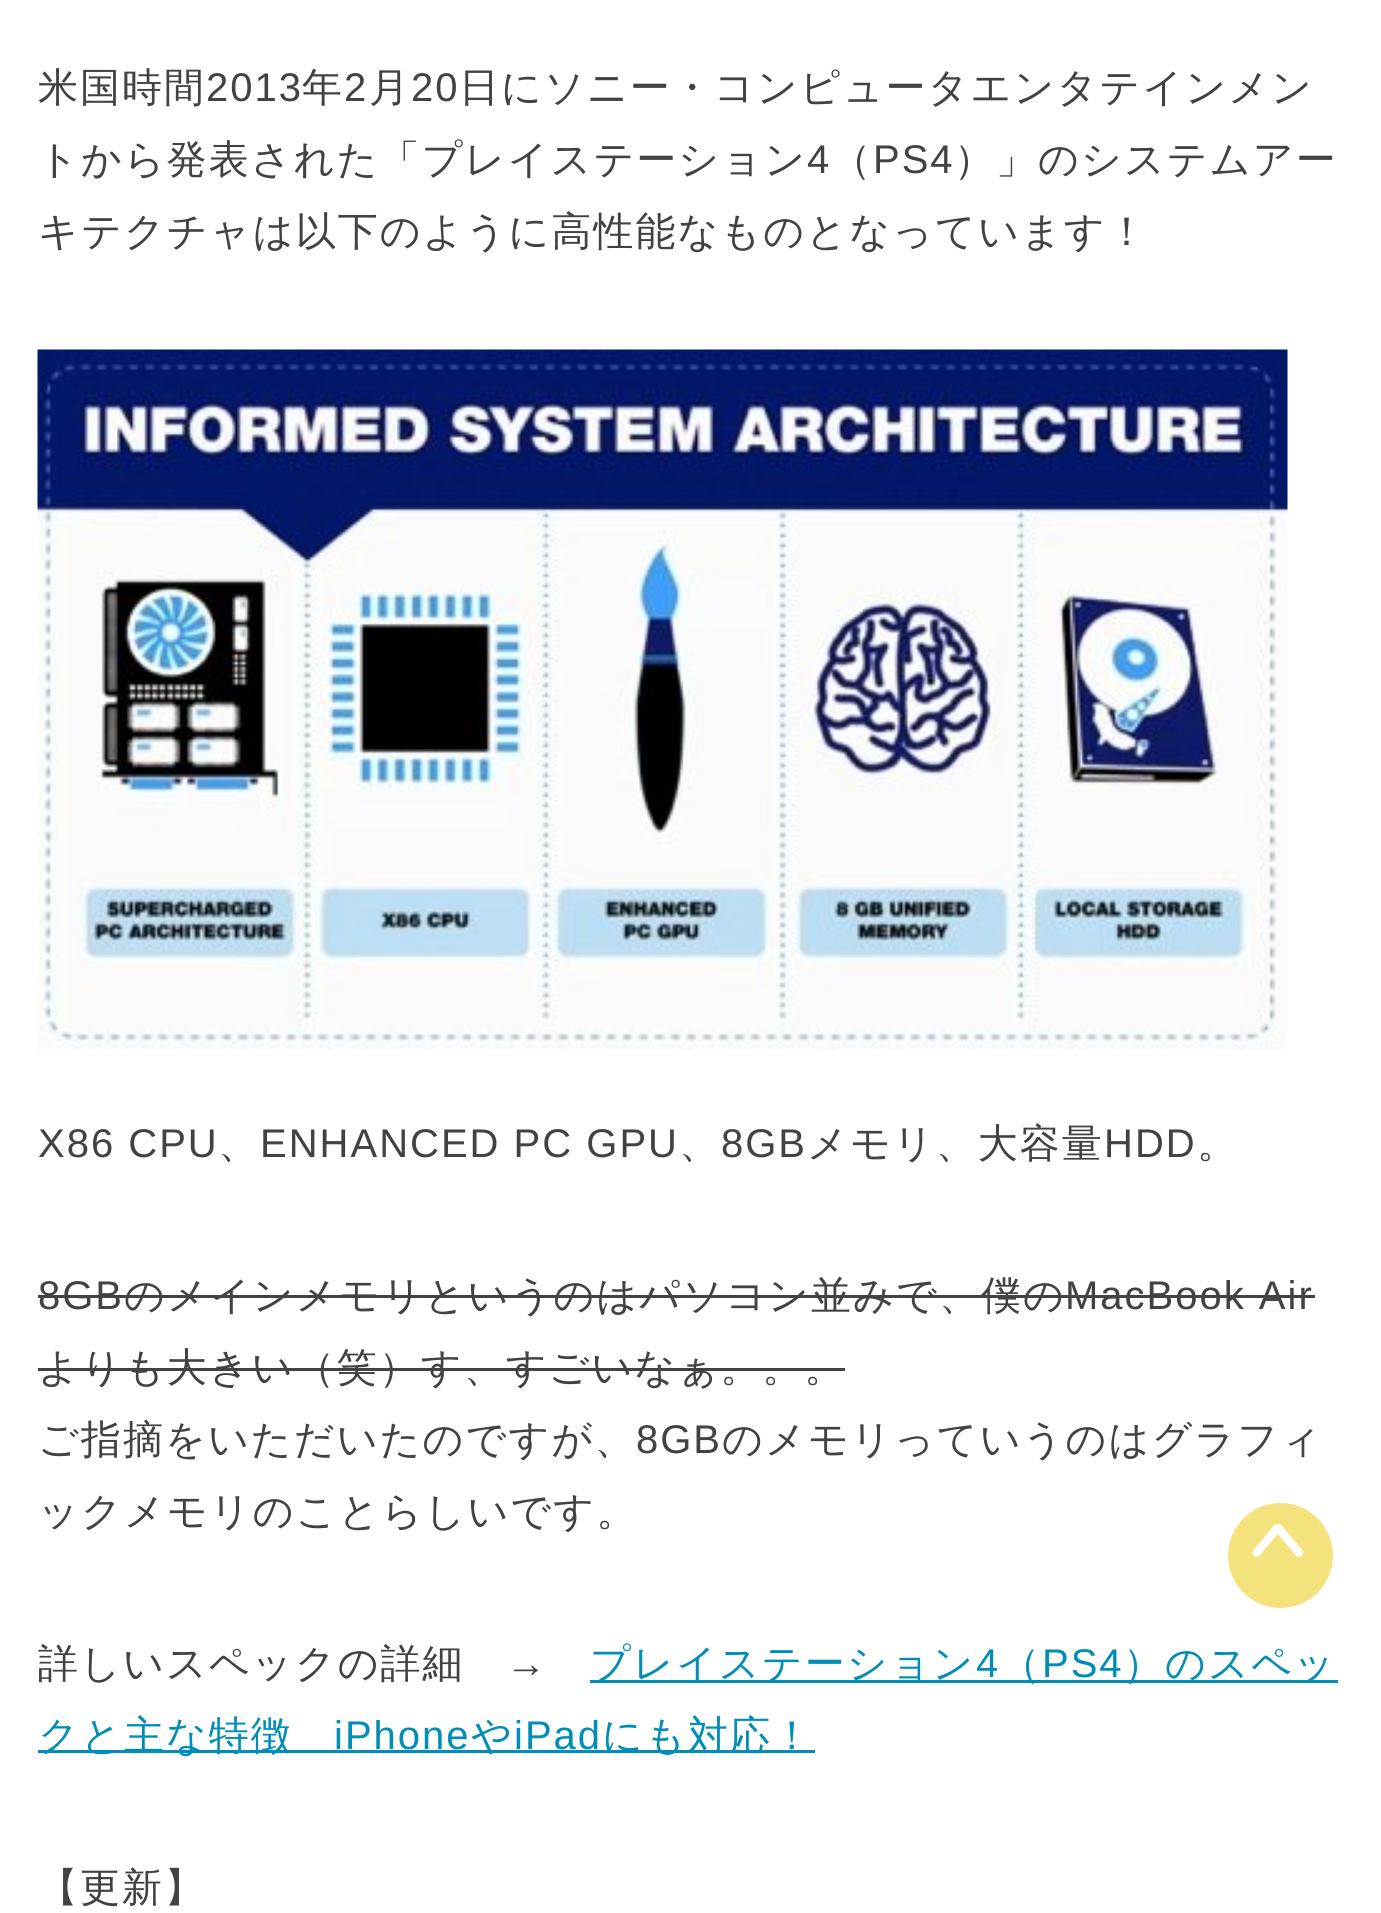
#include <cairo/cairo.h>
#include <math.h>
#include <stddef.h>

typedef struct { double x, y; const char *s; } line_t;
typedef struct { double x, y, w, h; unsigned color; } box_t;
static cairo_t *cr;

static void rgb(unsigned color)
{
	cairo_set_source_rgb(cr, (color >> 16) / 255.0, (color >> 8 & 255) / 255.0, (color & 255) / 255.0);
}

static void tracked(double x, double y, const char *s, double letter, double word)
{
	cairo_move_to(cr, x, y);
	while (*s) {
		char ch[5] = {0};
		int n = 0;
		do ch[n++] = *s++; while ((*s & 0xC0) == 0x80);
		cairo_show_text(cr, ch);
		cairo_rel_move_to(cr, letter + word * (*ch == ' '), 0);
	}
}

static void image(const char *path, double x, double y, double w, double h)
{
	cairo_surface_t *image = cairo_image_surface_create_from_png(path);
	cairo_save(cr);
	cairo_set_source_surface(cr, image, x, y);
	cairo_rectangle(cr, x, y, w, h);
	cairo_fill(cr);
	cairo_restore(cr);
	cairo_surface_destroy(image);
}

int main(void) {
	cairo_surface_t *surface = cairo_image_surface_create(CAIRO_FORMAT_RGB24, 1381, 1913);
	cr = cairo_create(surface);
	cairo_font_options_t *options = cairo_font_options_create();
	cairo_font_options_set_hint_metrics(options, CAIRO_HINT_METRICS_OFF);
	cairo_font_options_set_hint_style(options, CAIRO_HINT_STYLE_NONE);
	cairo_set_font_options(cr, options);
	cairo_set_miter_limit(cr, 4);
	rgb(0xffffff);
	cairo_paint(cr);
	image("img/1.png", 37, 349, 1251, 701);
	{
		static const box_t items[] = {
			{38, 1295, 1277, 3, 0x424242},
			{38, 1368, 807, 3, 0x424242},
			{590, 1680, 748, 3, 0x008db7},
			{38, 1750, 777, 3, 0x008db7},
		};
		for (size_t i = 0; i < sizeof items / sizeof *items; i++) {
			rgb(items[i].color);
			cairo_rectangle(cr, items[i].x, items[i].y, items[i].w, items[i].h);
			cairo_fill(cr);
		}
	}
	rgb(0xf4e27d);
	cairo_arc(cr, 1280.5, 1555.5, 52.5, 0, 2 * M_PI);
	cairo_fill(cr);
	image("img/2.png", 1252, 1523, 52, 34);
	cairo_select_font_face(cr, "WenQuanYi Zen Hei Medium", CAIRO_FONT_SLANT_NORMAL, CAIRO_FONT_WEIGHT_NORMAL);
	cairo_set_font_size(cr, 40);
	rgb(0x424242);
	tracked(38, 101, "米国時間", 2, 0);
	cairo_select_font_face(cr, "Liberation Sans", CAIRO_FONT_SLANT_NORMAL, CAIRO_FONT_WEIGHT_NORMAL);
	tracked(206, 101, "2013", 2, 0);
	cairo_select_font_face(cr, "WenQuanYi Zen Hei Medium", CAIRO_FONT_SLANT_NORMAL, CAIRO_FONT_WEIGHT_NORMAL);
	tracked(302, 101, "年", 2, 0);
	cairo_select_font_face(cr, "Liberation Sans", CAIRO_FONT_SLANT_NORMAL, CAIRO_FONT_WEIGHT_NORMAL);
	tracked(344, 101, "2", 2, 0);
	cairo_select_font_face(cr, "WenQuanYi Zen Hei Medium", CAIRO_FONT_SLANT_NORMAL, CAIRO_FONT_WEIGHT_NORMAL);
	tracked(369, 101, "月", 2, 0);
	cairo_select_font_face(cr, "Liberation Sans", CAIRO_FONT_SLANT_NORMAL, CAIRO_FONT_WEIGHT_NORMAL);
	tracked(411, 101, "20", 2, 0);
	cairo_select_font_face(cr, "WenQuanYi Zen Hei Medium", CAIRO_FONT_SLANT_NORMAL, CAIRO_FONT_WEIGHT_NORMAL);
	tracked(459, 101, "日にソニー・コンピュータエンタテインメン", 2, 0);
	tracked(38, 173, "トから発表された「プレイステーション", 2, 0);
	cairo_select_font_face(cr, "Liberation Sans", CAIRO_FONT_SLANT_NORMAL, CAIRO_FONT_WEIGHT_NORMAL);
	tracked(807, 173, "4", 2, 0);
	cairo_select_font_face(cr, "WenQuanYi Zen Hei Medium", CAIRO_FONT_SLANT_NORMAL, CAIRO_FONT_WEIGHT_NORMAL);
	tracked(831, 173, "（", 2, 0);
	cairo_select_font_face(cr, "Liberation Sans", CAIRO_FONT_SLANT_NORMAL, CAIRO_FONT_WEIGHT_NORMAL);
	tracked(873, 173, "PS4", 2, 0);
	cairo_select_font_face(cr, "WenQuanYi Zen Hei Medium", CAIRO_FONT_SLANT_NORMAL, CAIRO_FONT_WEIGHT_NORMAL);
	tracked(954, 173, "）」のシステムアー", 2, 0);
	tracked(38, 245, "キテクチャは以下のように高性能なものとなっています！", 2, 0);
	cairo_select_font_face(cr, "Liberation Sans", CAIRO_FONT_SLANT_NORMAL, CAIRO_FONT_WEIGHT_NORMAL);
	tracked(38, 1157, "X86 CPU", 2, 0);
	cairo_select_font_face(cr, "WenQuanYi Zen Hei Medium", CAIRO_FONT_SLANT_NORMAL, CAIRO_FONT_WEIGHT_NORMAL);
	tracked(218, 1157, "、", 2, 0);
	cairo_select_font_face(cr, "Liberation Sans", CAIRO_FONT_SLANT_NORMAL, CAIRO_FONT_WEIGHT_NORMAL);
	tracked(260, 1157, "ENHANCED PC GPU", 2, 0);
	cairo_select_font_face(cr, "WenQuanYi Zen Hei Medium", CAIRO_FONT_SLANT_NORMAL, CAIRO_FONT_WEIGHT_NORMAL);
	tracked(679, 1157, "、", 2, 0);
	cairo_select_font_face(cr, "Liberation Sans", CAIRO_FONT_SLANT_NORMAL, CAIRO_FONT_WEIGHT_NORMAL);
	tracked(721, 1157, "8GB", 2, 0);
	cairo_select_font_face(cr, "WenQuanYi Zen Hei Medium", CAIRO_FONT_SLANT_NORMAL, CAIRO_FONT_WEIGHT_NORMAL);
	tracked(807, 1157, "メモリ、大容量", 2, 0);
	cairo_select_font_face(cr, "Liberation Sans", CAIRO_FONT_SLANT_NORMAL, CAIRO_FONT_WEIGHT_NORMAL);
	tracked(1104, 1157, "HDD", 2, 0);
	cairo_select_font_face(cr, "WenQuanYi Zen Hei Medium", CAIRO_FONT_SLANT_NORMAL, CAIRO_FONT_WEIGHT_NORMAL);
	tracked(1197, 1157, "。", 2, 0);
	cairo_select_font_face(cr, "Liberation Sans", CAIRO_FONT_SLANT_NORMAL, CAIRO_FONT_WEIGHT_NORMAL);
	tracked(38, 1309, "8GB", 2, 0);
	cairo_select_font_face(cr, "WenQuanYi Zen Hei Medium", CAIRO_FONT_SLANT_NORMAL, CAIRO_FONT_WEIGHT_NORMAL);
	tracked(124, 1309, "のメインメモリというのはパソコン並みで、僕の", 2, 0);
	cairo_select_font_face(cr, "Liberation Sans", CAIRO_FONT_SLANT_NORMAL, CAIRO_FONT_WEIGHT_NORMAL);
	tracked(1065, 1309, "MacBook Air", 2, 0);
	cairo_select_font_face(cr, "WenQuanYi Zen Hei Medium", CAIRO_FONT_SLANT_NORMAL, CAIRO_FONT_WEIGHT_NORMAL);
	tracked(38, 1381, "よりも大きい（笑）す、すごいなぁ。。。", 2, 0);
	tracked(38, 1453, "ご指摘をいただいたのですが、", 2, 0);
	cairo_select_font_face(cr, "Liberation Sans", CAIRO_FONT_SLANT_NORMAL, CAIRO_FONT_WEIGHT_NORMAL);
	tracked(636, 1453, "8GB", 2, 0);
	cairo_select_font_face(cr, "WenQuanYi Zen Hei Medium", CAIRO_FONT_SLANT_NORMAL, CAIRO_FONT_WEIGHT_NORMAL);
	{
		static const line_t items[] = {
			{722, 1453, "のメモリっていうのはグラフィ"},
			{38, 1525, "ックメモリのことらしいです。"},
			{38, 1677, "詳しいスペックの詳細"},
		};
		for (size_t i = 0; i < sizeof items / sizeof *items; i++) {
			tracked(items[i].x, items[i].y, items[i].s, 2, 0);
		}
	}
	cairo_select_font_face(cr, "Liberation Sans", CAIRO_FONT_SLANT_NORMAL, CAIRO_FONT_WEIGHT_NORMAL);
	tracked(506, 1677, "→", 2, 0);
	cairo_select_font_face(cr, "WenQuanYi Zen Hei Medium", CAIRO_FONT_SLANT_NORMAL, CAIRO_FONT_WEIGHT_NORMAL);
	rgb(0x008db7);
	tracked(590, 1677, "プレイステーション", 2, 0);
	cairo_select_font_face(cr, "Liberation Sans", CAIRO_FONT_SLANT_NORMAL, CAIRO_FONT_WEIGHT_NORMAL);
	tracked(976, 1677, "4", 2, 0);
	cairo_select_font_face(cr, "WenQuanYi Zen Hei Medium", CAIRO_FONT_SLANT_NORMAL, CAIRO_FONT_WEIGHT_NORMAL);
	tracked(1000, 1677, "（", 2, 0);
	cairo_select_font_face(cr, "Liberation Sans", CAIRO_FONT_SLANT_NORMAL, CAIRO_FONT_WEIGHT_NORMAL);
	tracked(1042, 1677, "PS4", 2, 0);
	cairo_select_font_face(cr, "WenQuanYi Zen Hei Medium", CAIRO_FONT_SLANT_NORMAL, CAIRO_FONT_WEIGHT_NORMAL);
	tracked(1123, 1677, "）のスペッ", 2, 0);
	tracked(38, 1749, "クと主な特徴", 2, 0);
	cairo_select_font_face(cr, "Liberation Sans", CAIRO_FONT_SLANT_NORMAL, CAIRO_FONT_WEIGHT_NORMAL);
	tracked(334, 1749, "iPhone", 2, 0);
	cairo_select_font_face(cr, "WenQuanYi Zen Hei Medium", CAIRO_FONT_SLANT_NORMAL, CAIRO_FONT_WEIGHT_NORMAL);
	tracked(471, 1749, "や", 2, 0);
	cairo_select_font_face(cr, "Liberation Sans", CAIRO_FONT_SLANT_NORMAL, CAIRO_FONT_WEIGHT_NORMAL);
	tracked(514, 1749, "iPad", 2, 0);
	cairo_select_font_face(cr, "WenQuanYi Zen Hei Medium", CAIRO_FONT_SLANT_NORMAL, CAIRO_FONT_WEIGHT_NORMAL);
	tracked(602, 1749, "にも対応！", 2, 0);
	rgb(0x424242);
	tracked(38, 1901, "【更新】", 2, 0);
	cairo_surface_write_to_png(surface, "page.png");
	cairo_font_options_destroy(options);
	cairo_destroy(cr);
	cairo_surface_destroy(surface);
	return 0;
}
